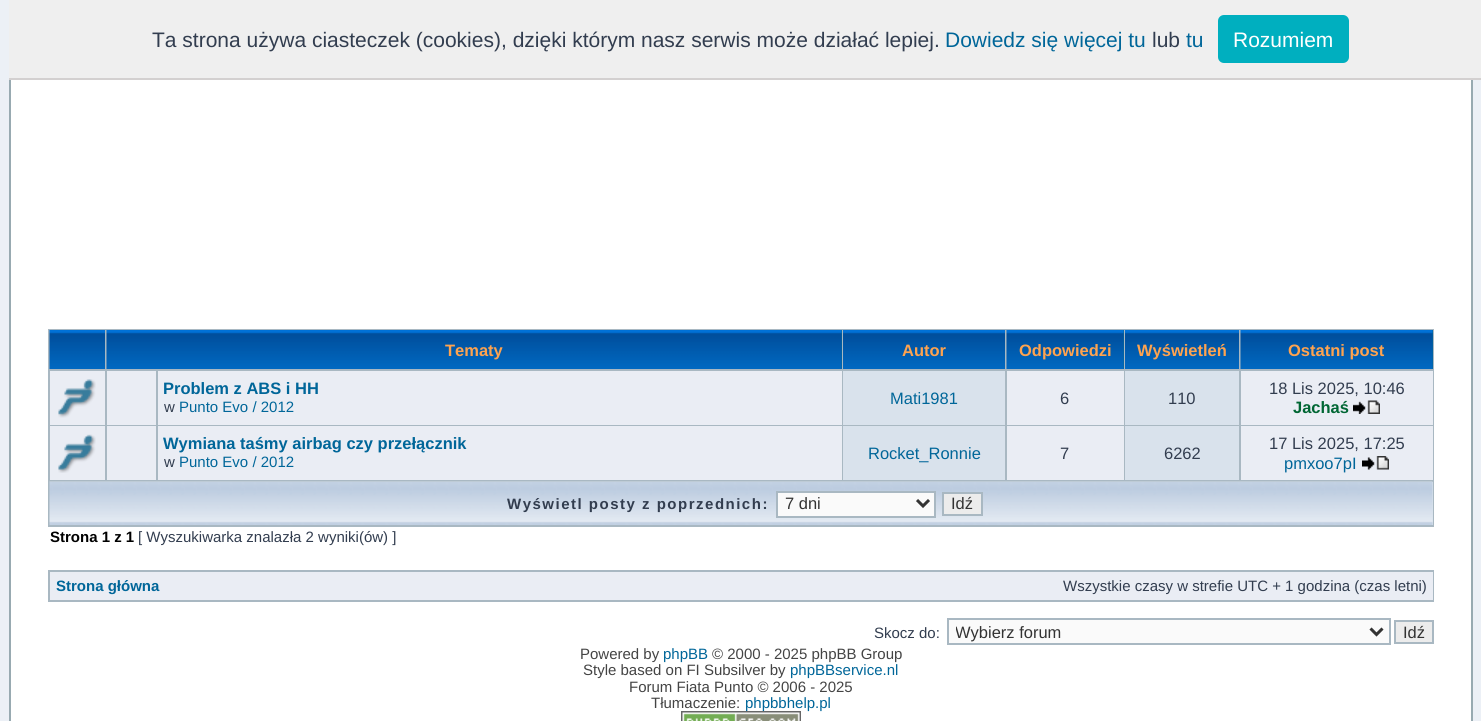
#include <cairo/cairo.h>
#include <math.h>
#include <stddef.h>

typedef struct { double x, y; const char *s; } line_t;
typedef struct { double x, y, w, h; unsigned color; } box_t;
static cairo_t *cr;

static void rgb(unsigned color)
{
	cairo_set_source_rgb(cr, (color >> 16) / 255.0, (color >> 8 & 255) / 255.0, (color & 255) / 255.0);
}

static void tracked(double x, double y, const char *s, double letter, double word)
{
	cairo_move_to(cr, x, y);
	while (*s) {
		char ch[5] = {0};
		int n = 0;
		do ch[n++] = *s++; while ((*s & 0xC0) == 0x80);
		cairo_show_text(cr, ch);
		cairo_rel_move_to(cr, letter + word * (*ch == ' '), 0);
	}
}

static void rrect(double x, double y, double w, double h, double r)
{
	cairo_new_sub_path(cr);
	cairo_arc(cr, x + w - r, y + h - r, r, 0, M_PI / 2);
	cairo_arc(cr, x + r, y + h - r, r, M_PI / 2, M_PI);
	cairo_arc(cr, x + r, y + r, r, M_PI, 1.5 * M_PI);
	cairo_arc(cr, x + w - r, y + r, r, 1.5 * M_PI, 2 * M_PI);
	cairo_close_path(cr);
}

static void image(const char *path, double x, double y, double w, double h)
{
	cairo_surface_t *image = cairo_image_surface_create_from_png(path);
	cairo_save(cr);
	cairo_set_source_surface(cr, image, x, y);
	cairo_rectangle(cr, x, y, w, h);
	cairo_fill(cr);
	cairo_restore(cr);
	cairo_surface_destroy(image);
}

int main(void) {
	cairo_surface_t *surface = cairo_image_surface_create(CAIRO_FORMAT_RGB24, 1481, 721);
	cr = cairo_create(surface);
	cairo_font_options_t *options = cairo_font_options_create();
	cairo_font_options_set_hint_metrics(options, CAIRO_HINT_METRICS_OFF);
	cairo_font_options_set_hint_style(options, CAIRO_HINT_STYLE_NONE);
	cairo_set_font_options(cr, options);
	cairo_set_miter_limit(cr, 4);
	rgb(0xecf0f6);
	cairo_paint(cr);
	rgb(0xffffff);
	cairo_rectangle(cr, 11, 80, 1460, 641);
	cairo_fill(cr);
	cairo_rectangle(cr, 10, -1, 1462, 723);
	rgb(0x98aab1);
	cairo_stroke(cr);
	rgb(0xefefef);
	cairo_rectangle(cr, 9, 0, 1472, 78);
	cairo_fill(cr);
	rgb(0xd3d0d0);
	cairo_rectangle(cr, 9, 78, 1472, 2);
	cairo_fill(cr);
	rgb(0x00afbf);
	rrect(1218, 15, 131, 48, 6);
	cairo_fill(cr);
	rgb(0xa9b8c2);
	cairo_rectangle(cr, 48, 329, 1386, 198);
	cairo_fill(cr);
	image("img/1.png", 49, 330, 56, 39);
	rgb(0x006699);
	cairo_rectangle(cr, 841, 330, 1, 39);
	cairo_fill(cr);
	image("img/2.png", 106, 330, 736, 39);
	image("img/3.png", 843, 330, 162, 39);
	cairo_rectangle(cr, 1123, 330, 1, 39);
	cairo_fill(cr);
	image("img/4.png", 1006, 330, 118, 39);
	image("img/5.png", 1125, 330, 114, 39);
	cairo_rectangle(cr, 1432, 330, 1, 39);
	cairo_fill(cr);
	image("img/6.png", 1240, 330, 193, 39);
	rgb(0xeaedf4);
	cairo_rectangle(cr, 50, 371, 55, 54);
	cairo_fill(cr);
	image("img/7.png", 58, 379, 38, 39);
	{
		static const box_t items[] = {
			{107, 371, 49, 54, 0xeaedf4},
			{158, 371, 684, 54, 0xeaedf4},
			{843, 371, 162, 54, 0xd9e2ec},
			{1007, 371, 117, 54, 0xeaedf4},
			{1125, 371, 114, 54, 0xd9e2ec},
			{1241, 371, 192, 54, 0xeaedf4},
		};
		for (size_t i = 0; i < sizeof items / sizeof *items; i++) {
			rgb(items[i].color);
			cairo_rectangle(cr, items[i].x, items[i].y, items[i].w, items[i].h);
			cairo_fill(cr);
		}
	}
	image("img/8.png", 1353, 400, 27, 14);
	cairo_rectangle(cr, 50, 426, 55, 54);
	cairo_fill(cr);
	image("img/9.png", 58, 434, 38, 39);
	{
		static const box_t items[] = {
			{107, 426, 49, 54, 0xeaedf4},
			{158, 426, 684, 54, 0xeaedf4},
			{843, 426, 162, 54, 0xd9e2ec},
			{1007, 426, 117, 54, 0xeaedf4},
			{1125, 426, 114, 54, 0xd9e2ec},
			{1241, 426, 192, 54, 0xeaedf4},
		};
		for (size_t i = 0; i < sizeof items / sizeof *items; i++) {
			rgb(items[i].color);
			cairo_rectangle(cr, items[i].x, items[i].y, items[i].w, items[i].h);
			cairo_fill(cr);
		}
	}
	image("img/10.png", 1362, 456, 27, 14);
	rgb(0xd9e2ec);
	cairo_rectangle(cr, 1432, 482, 1, 43);
	cairo_fill(cr);
	image("img/11.png", 49, 481, 1384, 44);
	rgb(0xfafafa);
	cairo_rectangle(cr, 777, 492, 158, 25);
	cairo_fill_preserve(cr);
	rgb(0xa9b8c2);
	cairo_stroke(cr);
	cairo_new_path(cr);
	cairo_move_to(cr, 917, 500);
	cairo_line_to(cr, 923, 506);
	cairo_line_to(cr, 929, 500);
	rgb(0x333333);
	cairo_set_line_width(cr, 3);
	cairo_stroke(cr);
	rgb(0xececec);
	cairo_rectangle(cr, 943, 493, 39, 22);
	cairo_fill_preserve(cr);
	rgb(0xa9b8c2);
	cairo_set_line_width(cr, 2);
	cairo_stroke(cr);
	cairo_rectangle(cr, 48, 570, 1386, 32);
	cairo_fill(cr);
	rgb(0xeaedf4);
	cairo_rectangle(cr, 50, 572, 1383, 28);
	cairo_fill(cr);
	rgb(0xfafafa);
	cairo_rectangle(cr, 948, 619, 442, 25);
	cairo_fill_preserve(cr);
	rgb(0xa9b8c2);
	cairo_stroke(cr);
	cairo_new_path(cr);
	cairo_move_to(cr, 1370.5, 628.5);
	cairo_line_to(cr, 1376.5, 634.5);
	cairo_line_to(cr, 1382.5, 628.5);
	rgb(0x333333);
	cairo_set_line_width(cr, 3);
	cairo_stroke(cr);
	rgb(0xececec);
	cairo_rectangle(cr, 1395, 621, 38, 22);
	cairo_fill_preserve(cr);
	rgb(0xa9b8c2);
	cairo_set_line_width(cr, 2);
	cairo_stroke(cr);
	cairo_select_font_face(cr, "Liberation Sans", CAIRO_FONT_SLANT_NORMAL, CAIRO_FONT_WEIGHT_NORMAL);
	cairo_set_font_size(cr, 21);
	rgb(0x323d4f);
	cairo_move_to(cr, 152, 47);
	cairo_show_text(cr, "Ta strona używa ciasteczek (cookies), dzięki którym nasz serwis może działać lepiej.");
	rgb(0x006699);
	cairo_move_to(cr, 945, 47);
	cairo_show_text(cr, "Dowiedz się więcej tu");
	rgb(0x323d4f);
	cairo_move_to(cr, 1152, 47);
	cairo_show_text(cr, "lub");
	rgb(0x006699);
	cairo_move_to(cr, 1186, 47);
	cairo_show_text(cr, "tu");
	rgb(0xffffff);
	cairo_move_to(cr, 1233, 47);
	cairo_show_text(cr, "Rozumiem");
	cairo_select_font_face(cr, "Liberation Sans", CAIRO_FONT_SLANT_NORMAL, CAIRO_FONT_WEIGHT_BOLD);
	cairo_set_font_size(cr, 16.5);
	rgb(0xffa34f);
	{
		static const line_t items[] = {
			{445, 356, "Tematy"},
			{902, 356, "Autor"},
			{1019, 356, "Odpowiedzi"},
			{1137, 356, "Wyświetleń"},
			{1288, 356, "Ostatni post"},
		};
		for (size_t i = 0; i < sizeof items / sizeof *items; i++) {
			cairo_move_to(cr, items[i].x, items[i].y);
			cairo_show_text(cr, items[i].s);
		}
	}
	rgb(0x006699);
	cairo_move_to(cr, 163, 394);
	cairo_show_text(cr, "Problem z ABS i HH");
	cairo_select_font_face(cr, "Liberation Sans", CAIRO_FONT_SLANT_NORMAL, CAIRO_FONT_WEIGHT_NORMAL);
	cairo_set_font_size(cr, 15);
	rgb(0x323d4f);
	cairo_move_to(cr, 164, 412);
	cairo_show_text(cr, "w");
	rgb(0x006699);
	cairo_move_to(cr, 179, 412);
	cairo_show_text(cr, "Punto Evo / 2012");
	cairo_set_font_size(cr, 16.5);
	cairo_move_to(cr, 890, 404);
	cairo_show_text(cr, "Mati1981");
	rgb(0x323d4f);
	{
		static const line_t items[] = {
			{1060, 404, "6"},
			{1168, 404, "110"},
			{1269, 394, "18 Lis 2025, 10:46"},
		};
		for (size_t i = 0; i < sizeof items / sizeof *items; i++) {
			cairo_move_to(cr, items[i].x, items[i].y);
			cairo_show_text(cr, items[i].s);
		}
	}
	cairo_select_font_face(cr, "Liberation Sans", CAIRO_FONT_SLANT_NORMAL, CAIRO_FONT_WEIGHT_BOLD);
	rgb(0x006633);
	cairo_move_to(cr, 1293, 413);
	cairo_show_text(cr, "Jachaś");
	rgb(0x006699);
	cairo_move_to(cr, 163, 449);
	cairo_show_text(cr, "Wymiana taśmy airbag czy przełącznik");
	cairo_select_font_face(cr, "Liberation Sans", CAIRO_FONT_SLANT_NORMAL, CAIRO_FONT_WEIGHT_NORMAL);
	cairo_set_font_size(cr, 15);
	rgb(0x323d4f);
	cairo_move_to(cr, 164, 467);
	cairo_show_text(cr, "w");
	rgb(0x006699);
	cairo_move_to(cr, 179, 467);
	cairo_show_text(cr, "Punto Evo / 2012");
	cairo_set_font_size(cr, 16.5);
	cairo_move_to(cr, 868, 459);
	cairo_show_text(cr, "Rocket_Ronnie");
	rgb(0x323d4f);
	{
		static const line_t items[] = {
			{1060, 459, "7"},
			{1164, 459, "6262"},
			{1269, 449, "17 Lis 2025, 17:25"},
		};
		for (size_t i = 0; i < sizeof items / sizeof *items; i++) {
			cairo_move_to(cr, items[i].x, items[i].y);
			cairo_show_text(cr, items[i].s);
		}
	}
	rgb(0x006699);
	cairo_move_to(cr, 1284, 469);
	cairo_show_text(cr, "pmxoo7pI");
	cairo_select_font_face(cr, "Liberation Sans", CAIRO_FONT_SLANT_NORMAL, CAIRO_FONT_WEIGHT_BOLD);
	cairo_set_font_size(cr, 15);
	rgb(0x323d4f);
	tracked(507, 509, "Wyświetl posty z poprzednich:", 1.5, 0);
	cairo_select_font_face(cr, "Liberation Sans", CAIRO_FONT_SLANT_NORMAL, CAIRO_FONT_WEIGHT_NORMAL);
	cairo_set_font_size(cr, 16.5);
	rgb(0x333333);
	cairo_move_to(cr, 785, 509);
	cairo_show_text(cr, "7 dni");
	cairo_move_to(cr, 951, 509);
	cairo_show_text(cr, "Idź");
	cairo_select_font_face(cr, "Liberation Sans", CAIRO_FONT_SLANT_NORMAL, CAIRO_FONT_WEIGHT_BOLD);
	cairo_set_font_size(cr, 15);
	rgb(0x000000);
	cairo_move_to(cr, 50, 542);
	cairo_show_text(cr, "Strona 1 z 1");
	cairo_select_font_face(cr, "Liberation Sans", CAIRO_FONT_SLANT_NORMAL, CAIRO_FONT_WEIGHT_NORMAL);
	rgb(0x323d4f);
	cairo_move_to(cr, 138, 542);
	cairo_show_text(cr, "[ Wyszukiwarka znalazła 2 wyniki(ów) ]");
	cairo_select_font_face(cr, "Liberation Sans", CAIRO_FONT_SLANT_NORMAL, CAIRO_FONT_WEIGHT_BOLD);
	rgb(0x006699);
	cairo_move_to(cr, 56, 591);
	cairo_show_text(cr, "Strona główna");
	cairo_select_font_face(cr, "Liberation Sans", CAIRO_FONT_SLANT_NORMAL, CAIRO_FONT_WEIGHT_NORMAL);
	rgb(0x323d4f);
	cairo_move_to(cr, 1063, 591);
	cairo_show_text(cr, "Wszystkie czasy w strefie UTC + 1 godzina (czas letni)");
	cairo_move_to(cr, 874, 638);
	cairo_show_text(cr, "Skocz do:");
	cairo_save(cr);
	cairo_rectangle(cr, 956, 621, 408, 21);
	cairo_clip(cr);
	cairo_set_font_size(cr, 16.5);
	rgb(0x333333);
	cairo_move_to(cr, 955, 638);
	cairo_show_text(cr, "Wybierz forum");
	cairo_restore(cr);
	cairo_set_font_size(cr, 16.5);
	rgb(0x333333);
	cairo_move_to(cr, 1403, 638);
	cairo_show_text(cr, "Idź");
	cairo_set_font_size(cr, 15);
	rgb(0x444444);
	cairo_move_to(cr, 580, 659);
	cairo_show_text(cr, "Powered by");
	rgb(0x006699);
	cairo_move_to(cr, 663, 659);
	cairo_show_text(cr, "phpBB");
	rgb(0x444444);
	cairo_move_to(cr, 712, 659);
	cairo_show_text(cr, "© 2000 - 2025 phpBB Group");
	cairo_move_to(cr, 583, 675);
	cairo_show_text(cr, "Style based on FI Subsilver by");
	rgb(0x006699);
	cairo_move_to(cr, 790, 675);
	cairo_show_text(cr, "phpBBservice.nl");
	rgb(0x444444);
	cairo_move_to(cr, 629, 692);
	cairo_show_text(cr, "Forum Fiata Punto © 2006 - 2025");
	cairo_move_to(cr, 651, 708);
	cairo_show_text(cr, "Tłumaczenie:");
	rgb(0x006699);
	cairo_move_to(cr, 745, 708);
	cairo_show_text(cr, "phpbbhelp.pl");
	image("img/12.png", 681, 711, 120, 10);
	cairo_surface_write_to_png(surface, "page.png");
	cairo_font_options_destroy(options);
	cairo_destroy(cr);
	cairo_surface_destroy(surface);
	return 0;
}
